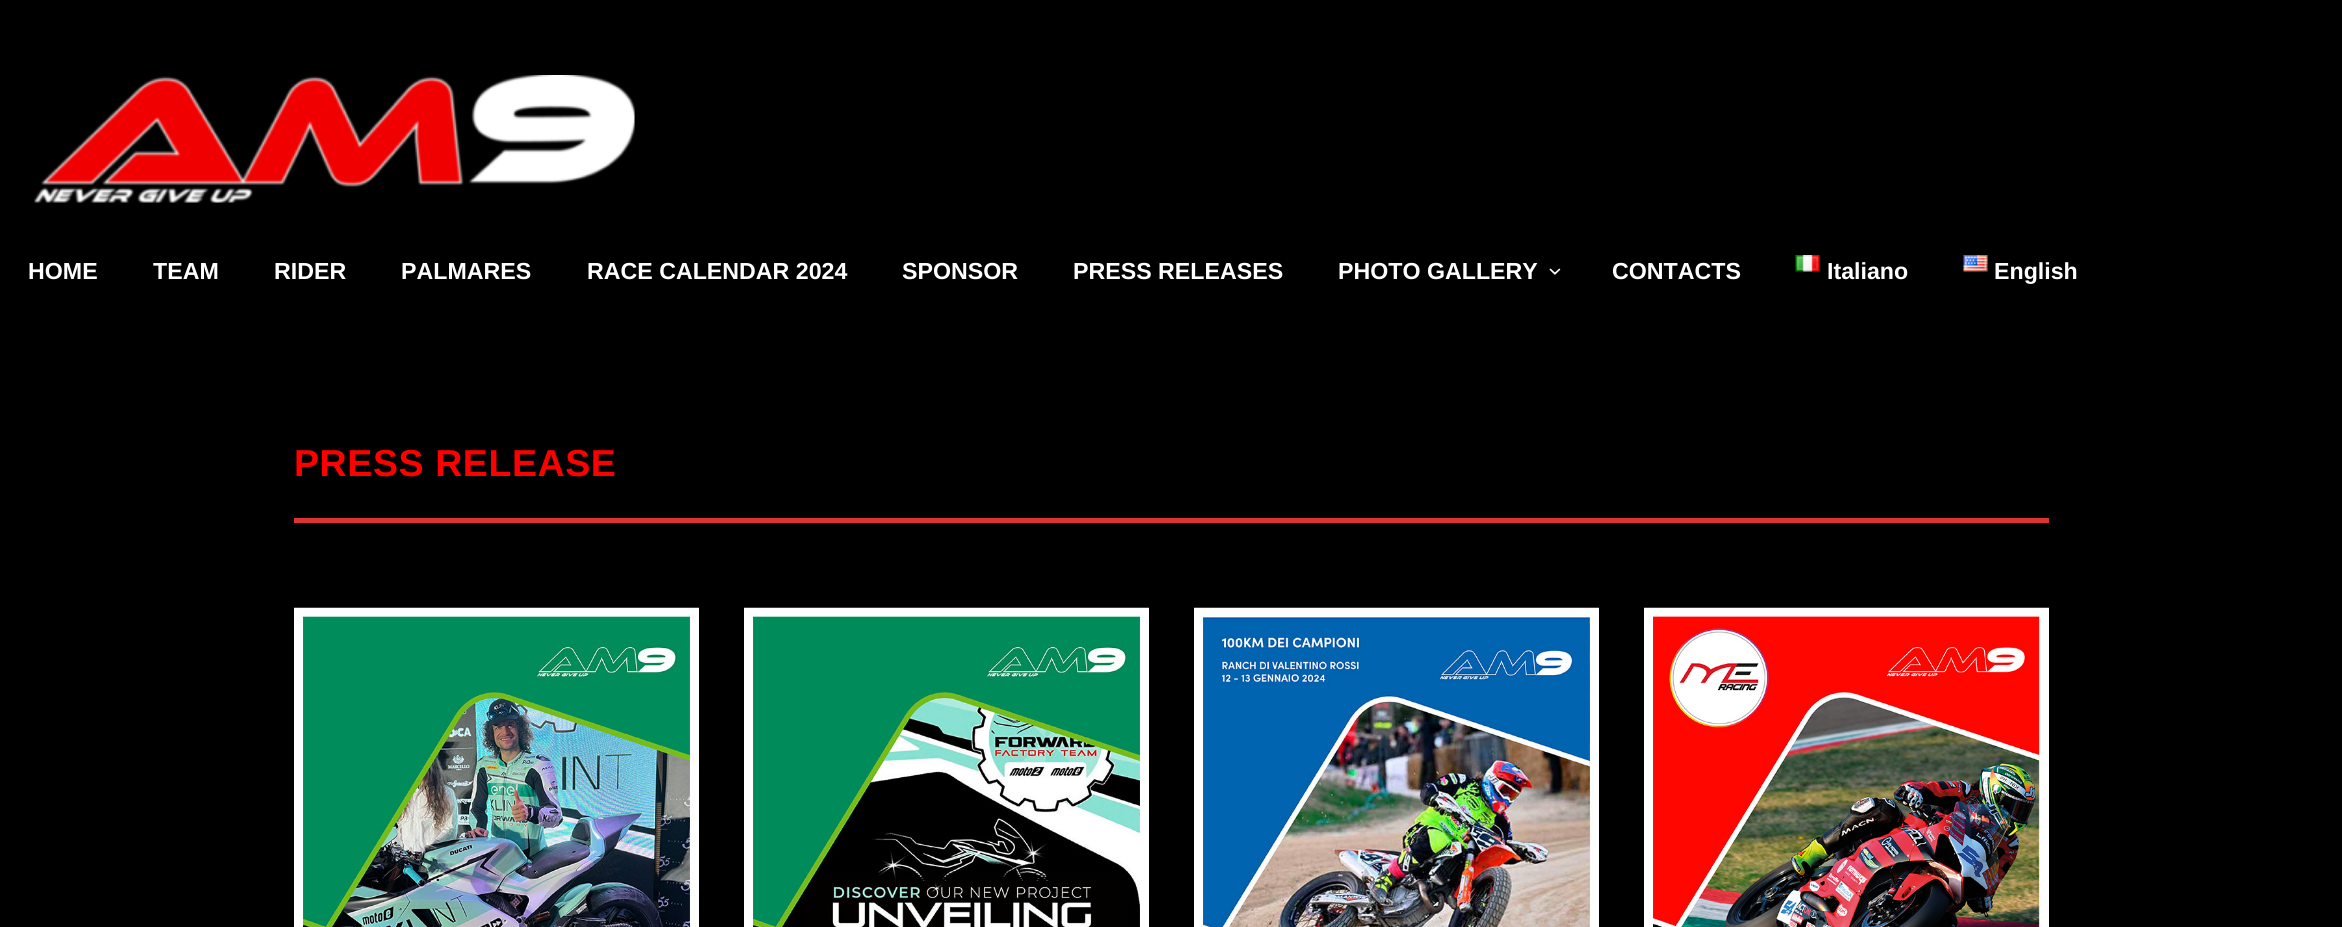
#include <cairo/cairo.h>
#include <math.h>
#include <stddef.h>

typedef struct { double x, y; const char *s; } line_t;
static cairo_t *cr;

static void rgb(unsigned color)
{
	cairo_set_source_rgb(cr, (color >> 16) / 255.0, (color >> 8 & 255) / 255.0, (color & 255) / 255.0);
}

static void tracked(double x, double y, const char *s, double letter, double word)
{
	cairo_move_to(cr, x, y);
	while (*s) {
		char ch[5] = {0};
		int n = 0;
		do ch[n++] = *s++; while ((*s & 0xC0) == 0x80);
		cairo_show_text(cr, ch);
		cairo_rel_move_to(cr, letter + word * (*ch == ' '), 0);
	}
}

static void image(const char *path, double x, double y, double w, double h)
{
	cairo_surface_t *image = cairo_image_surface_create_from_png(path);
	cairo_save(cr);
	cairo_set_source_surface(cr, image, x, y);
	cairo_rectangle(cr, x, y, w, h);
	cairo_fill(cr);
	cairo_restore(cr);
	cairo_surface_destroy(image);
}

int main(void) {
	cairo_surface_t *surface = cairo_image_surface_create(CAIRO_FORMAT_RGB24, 2342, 927);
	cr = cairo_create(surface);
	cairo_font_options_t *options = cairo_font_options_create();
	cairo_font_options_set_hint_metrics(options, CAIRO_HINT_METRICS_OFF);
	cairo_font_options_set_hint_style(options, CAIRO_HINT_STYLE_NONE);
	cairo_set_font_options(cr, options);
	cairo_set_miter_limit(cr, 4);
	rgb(0x000000);
	cairo_paint(cr);
	image("img/1.png", 34, 75, 601, 128);
	image("img/2.png", 1549, 268, 12, 7);
	image("img/3.png", 1795, 255, 25, 17);
	image("img/4.png", 1963, 255, 25, 17);
	rgb(0xdd3333);
	cairo_rectangle(cr, 294, 518, 1755, 5);
	cairo_fill(cr);
	image("img/5.png", 294, 607, 405, 320);
	image("img/6.png", 744, 607, 405, 320);
	image("img/7.png", 1194, 607, 405, 320);
	image("img/8.png", 1644, 607, 405, 320);
	cairo_select_font_face(cr, "Liberation Sans", CAIRO_FONT_SLANT_NORMAL, CAIRO_FONT_WEIGHT_BOLD);
	cairo_set_font_size(cr, 23.2);
	rgb(0xffffff);
	{
		static const line_t items[] = {
			{28, 279, "HOME"},
			{153, 279, "TEAM"},
			{274, 279, "RIDER"},
			{401, 279, "PALMARES"},
			{587, 279, "RACE CALENDAR 2024"},
			{902, 279, "SPONSOR"},
			{1073, 279, "PRESS RELEASES"},
			{1338, 279, "PHOTO GALLERY"},
			{1612, 279, "CONTACTS"},
			{1827, 279, "Italiano"},
			{1994, 279, "English"},
		};
		for (size_t i = 0; i < sizeof items / sizeof *items; i++) {
			cairo_move_to(cr, items[i].x, items[i].y);
			cairo_show_text(cr, items[i].s);
		}
	}
	cairo_set_font_size(cr, 37.5);
	rgb(0xff0000);
	tracked(294, 476, "PRESS RELEASE", 0.6, 0);
	cairo_surface_write_to_png(surface, "page.png");
	cairo_font_options_destroy(options);
	cairo_destroy(cr);
	cairo_surface_destroy(surface);
	return 0;
}
